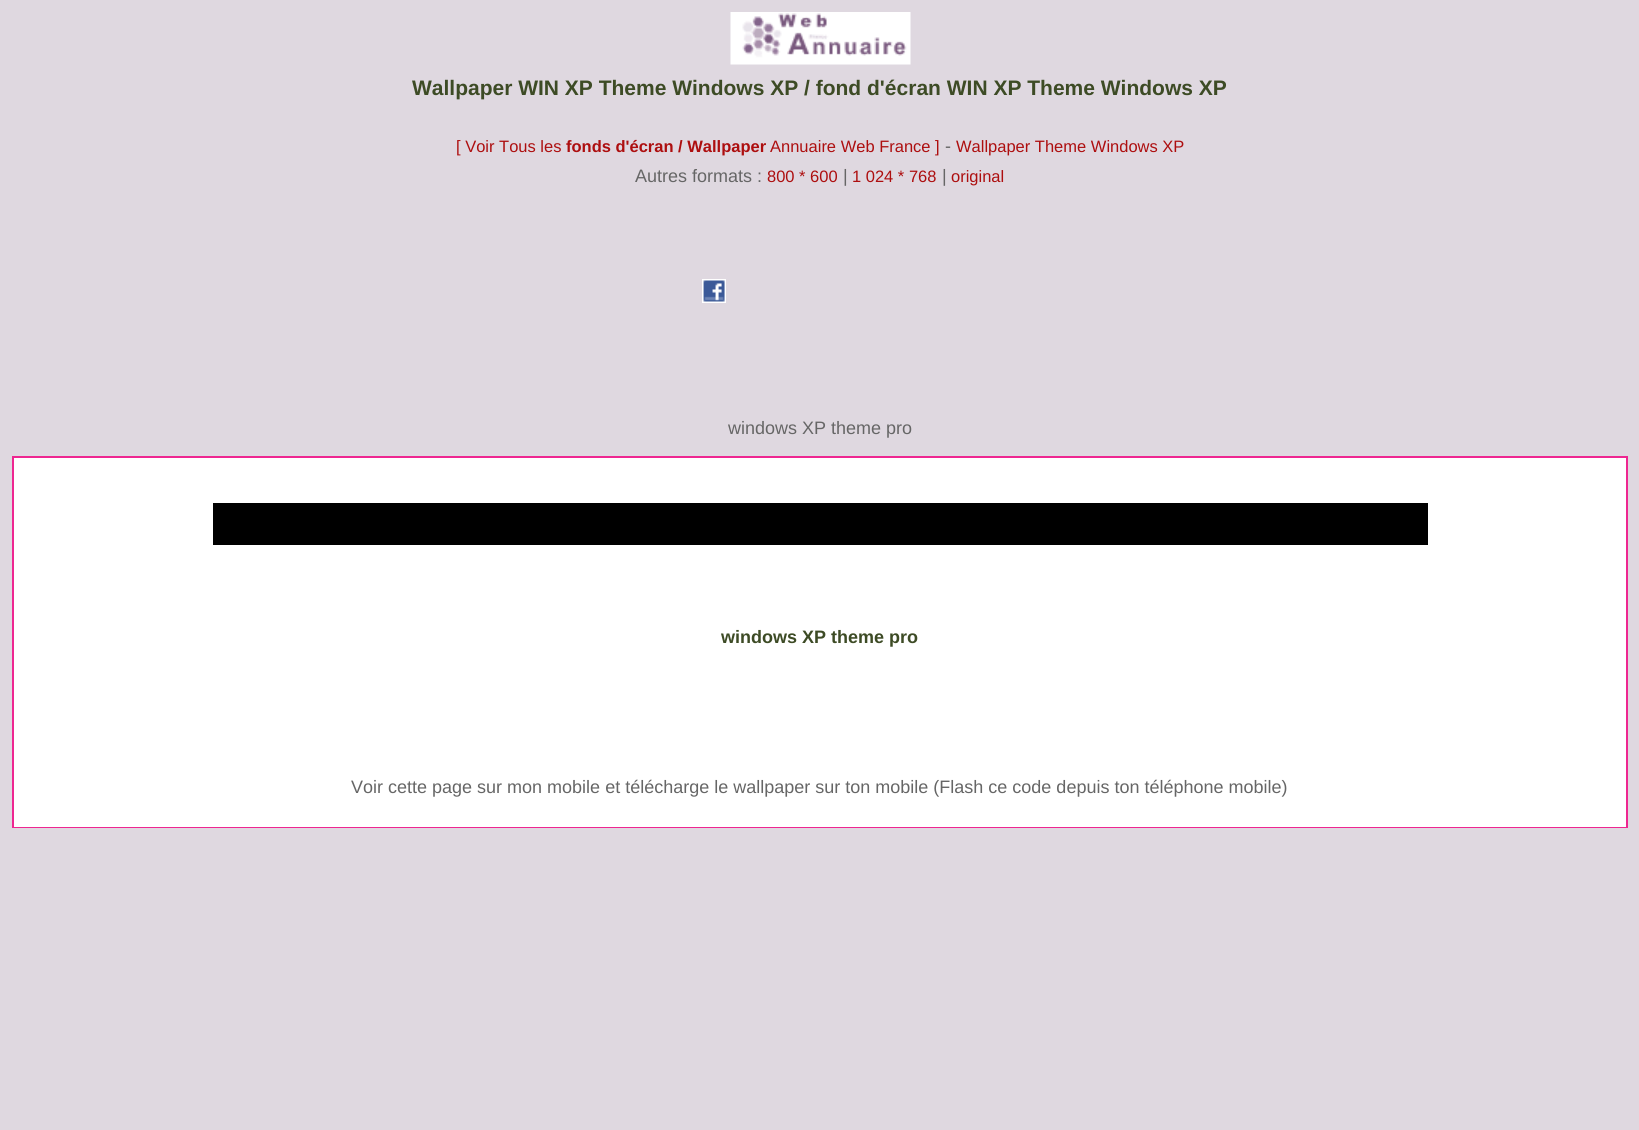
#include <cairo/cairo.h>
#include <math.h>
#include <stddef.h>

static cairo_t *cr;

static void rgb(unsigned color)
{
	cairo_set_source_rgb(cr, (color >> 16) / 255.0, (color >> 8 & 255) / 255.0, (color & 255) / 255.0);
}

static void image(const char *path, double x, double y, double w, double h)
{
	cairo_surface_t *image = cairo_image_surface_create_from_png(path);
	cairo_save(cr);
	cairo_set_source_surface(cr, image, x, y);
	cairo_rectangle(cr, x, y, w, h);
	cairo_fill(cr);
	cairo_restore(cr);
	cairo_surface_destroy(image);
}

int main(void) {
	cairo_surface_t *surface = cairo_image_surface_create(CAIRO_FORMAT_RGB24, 1639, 1130);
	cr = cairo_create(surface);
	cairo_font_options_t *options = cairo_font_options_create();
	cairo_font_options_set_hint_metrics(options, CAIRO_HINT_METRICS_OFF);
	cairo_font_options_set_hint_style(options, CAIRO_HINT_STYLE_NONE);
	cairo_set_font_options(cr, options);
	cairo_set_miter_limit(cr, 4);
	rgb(0xdfd8e0);
	cairo_paint(cr);
	image("img/1.png", 730, 12, 181, 53);
	image("img/2.png", 702, 279, 24, 24);
	cairo_rectangle(cr, 13, 457, 1614, 370);
	rgb(0xee2691);
	cairo_stroke(cr);
	rgb(0xffffff);
	cairo_rectangle(cr, 14, 458, 1612, 369);
	cairo_fill(cr);
	rgb(0x000000);
	cairo_rectangle(cr, 213, 503, 1215, 42);
	cairo_fill(cr);
	cairo_select_font_face(cr, "Liberation Sans", CAIRO_FONT_SLANT_NORMAL, CAIRO_FONT_WEIGHT_BOLD);
	cairo_set_font_size(cr, 21);
	rgb(0x3d4b25);
	cairo_move_to(cr, 412, 95);
	cairo_show_text(cr, "Wallpaper WIN XP Theme Windows XP / fond d'écran WIN XP Theme Windows XP");
	cairo_select_font_face(cr, "Liberation Sans", CAIRO_FONT_SLANT_NORMAL, CAIRO_FONT_WEIGHT_NORMAL);
	cairo_set_font_size(cr, 16.5);
	rgb(0xad0e0f);
	cairo_move_to(cr, 456, 152);
	cairo_show_text(cr, "[ Voir Tous les");
	cairo_select_font_face(cr, "Liberation Sans", CAIRO_FONT_SLANT_NORMAL, CAIRO_FONT_WEIGHT_BOLD);
	cairo_move_to(cr, 566, 152);
	cairo_show_text(cr, "fonds d'écran / Wallpaper");
	cairo_select_font_face(cr, "Liberation Sans", CAIRO_FONT_SLANT_NORMAL, CAIRO_FONT_WEIGHT_NORMAL);
	cairo_move_to(cr, 770, 152);
	cairo_show_text(cr, "Annuaire Web France ]");
	cairo_set_font_size(cr, 18);
	rgb(0x666666);
	cairo_move_to(cr, 945, 152);
	cairo_show_text(cr, "-");
	cairo_set_font_size(cr, 16.5);
	rgb(0xad0e0f);
	cairo_move_to(cr, 956, 152);
	cairo_show_text(cr, "Wallpaper Theme Windows XP");
	cairo_set_font_size(cr, 18);
	rgb(0x666666);
	cairo_move_to(cr, 635, 182);
	cairo_show_text(cr, "Autres formats :");
	cairo_set_font_size(cr, 16.5);
	rgb(0xad0e0f);
	cairo_move_to(cr, 767, 182);
	cairo_show_text(cr, "800 * 600");
	cairo_set_font_size(cr, 18);
	rgb(0x666666);
	cairo_move_to(cr, 843, 182);
	cairo_show_text(cr, "|");
	cairo_set_font_size(cr, 16.5);
	rgb(0xad0e0f);
	cairo_move_to(cr, 852, 182);
	cairo_show_text(cr, "1 024 * 768");
	cairo_set_font_size(cr, 18);
	rgb(0x666666);
	cairo_move_to(cr, 942, 182);
	cairo_show_text(cr, "|");
	cairo_set_font_size(cr, 16.5);
	rgb(0xad0e0f);
	cairo_move_to(cr, 951, 182);
	cairo_show_text(cr, "original");
	cairo_set_font_size(cr, 18);
	rgb(0x666666);
	cairo_move_to(cr, 728, 434);
	cairo_show_text(cr, "windows XP theme pro");
	cairo_select_font_face(cr, "Liberation Sans", CAIRO_FONT_SLANT_NORMAL, CAIRO_FONT_WEIGHT_BOLD);
	rgb(0x3d4b25);
	cairo_move_to(cr, 721, 643);
	cairo_show_text(cr, "windows XP theme pro");
	cairo_select_font_face(cr, "Liberation Sans", CAIRO_FONT_SLANT_NORMAL, CAIRO_FONT_WEIGHT_NORMAL);
	rgb(0x666666);
	cairo_move_to(cr, 351, 793);
	cairo_show_text(cr, "Voir cette page sur mon mobile et télécharge le wallpaper sur ton mobile (Flash ce code depuis ton téléphone mobile)");
	cairo_surface_write_to_png(surface, "page.png");
	cairo_font_options_destroy(options);
	cairo_destroy(cr);
	cairo_surface_destroy(surface);
	return 0;
}
